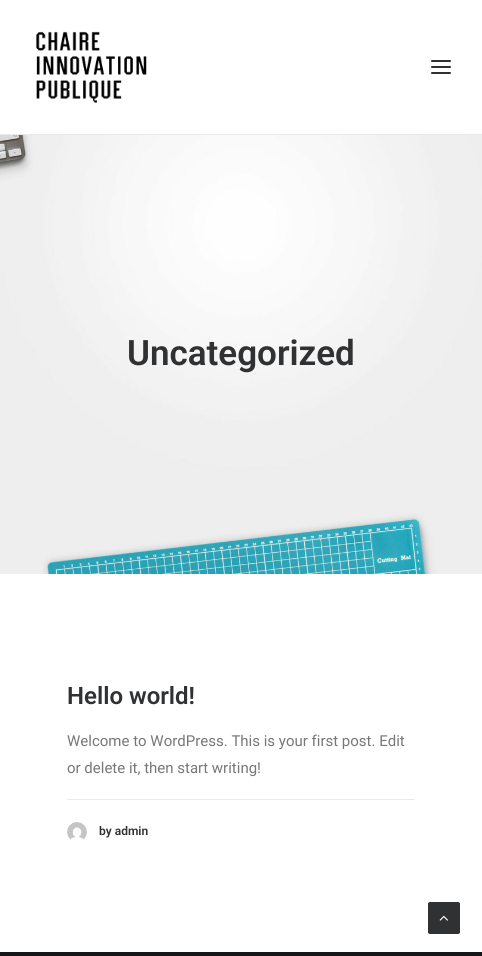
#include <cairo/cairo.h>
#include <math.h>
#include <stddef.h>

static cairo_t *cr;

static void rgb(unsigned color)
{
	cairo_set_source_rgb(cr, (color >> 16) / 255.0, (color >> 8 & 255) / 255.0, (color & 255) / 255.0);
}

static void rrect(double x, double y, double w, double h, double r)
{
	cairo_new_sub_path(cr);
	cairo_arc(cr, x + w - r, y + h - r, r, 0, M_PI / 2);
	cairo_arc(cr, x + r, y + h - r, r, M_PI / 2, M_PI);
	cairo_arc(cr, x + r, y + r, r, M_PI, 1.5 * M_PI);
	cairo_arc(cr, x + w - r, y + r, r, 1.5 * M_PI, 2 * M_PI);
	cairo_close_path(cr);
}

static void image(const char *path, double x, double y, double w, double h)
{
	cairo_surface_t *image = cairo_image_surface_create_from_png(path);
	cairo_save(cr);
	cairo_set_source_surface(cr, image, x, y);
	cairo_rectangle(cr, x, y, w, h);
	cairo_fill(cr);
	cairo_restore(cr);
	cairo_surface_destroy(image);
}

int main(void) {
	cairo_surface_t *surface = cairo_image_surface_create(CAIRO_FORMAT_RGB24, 482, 956);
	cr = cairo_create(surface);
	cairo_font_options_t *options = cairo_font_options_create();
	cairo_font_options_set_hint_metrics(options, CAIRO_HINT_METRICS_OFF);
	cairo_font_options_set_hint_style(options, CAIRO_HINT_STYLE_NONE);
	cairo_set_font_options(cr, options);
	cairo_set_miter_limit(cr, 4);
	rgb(0xffffff);
	cairo_paint(cr);
	rgb(0xeaeaea);
	cairo_rectangle(cr, 0, 134, 482, 1);
	cairo_fill(cr);
	image("img/1.png", 36, 31, 111, 73);
	rgb(0x303133);
	rrect(431, 66, 20, 2, 1);
	cairo_fill(cr);
	rrect(431, 60, 20, 2, 1);
	cairo_fill(cr);
	rrect(431, 72, 20, 2, 1);
	cairo_fill(cr);
	image("img/2.png", 0, 135, 482, 439);
	rgb(0xeaeaea);
	cairo_rectangle(cr, 67, 799, 348, 1);
	cairo_fill(cr);
	image("img/3.png", 67, 822, 20, 18);
	rgb(0x141618);
	cairo_rectangle(cr, 0, 952, 482, 4);
	cairo_fill(cr);
	rgb(0x303133);
	rrect(428.5, 902.5, 31, 31, 1.5);
	cairo_fill_preserve(cr);
	cairo_set_line_width(cr, 1);
	cairo_stroke(cr);
	image("img/4.png", 439, 915, 9, 6);
	cairo_select_font_face(cr, "Roboto SemiBold", CAIRO_FONT_SLANT_NORMAL, CAIRO_FONT_WEIGHT_NORMAL);
	cairo_set_font_size(cr, 35);
	cairo_move_to(cr, 127, 365);
	cairo_show_text(cr, "Uncategorized");
	cairo_set_font_size(cr, 24);
	cairo_move_to(cr, 67, 704);
	cairo_show_text(cr, "Hello world!");
	cairo_select_font_face(cr, "Roboto", CAIRO_FONT_SLANT_NORMAL, CAIRO_FONT_WEIGHT_NORMAL);
	cairo_set_font_size(cr, 15);
	rgb(0x777777);
	cairo_move_to(cr, 67, 746);
	cairo_show_text(cr, "Welcome to WordPress. This is your first post. Edit");
	cairo_move_to(cr, 67, 773);
	cairo_show_text(cr, "or delete it, then start writing!");
	cairo_select_font_face(cr, "Roboto SemiBold", CAIRO_FONT_SLANT_NORMAL, CAIRO_FONT_WEIGHT_NORMAL);
	cairo_set_font_size(cr, 12);
	rgb(0x303133);
	cairo_move_to(cr, 99, 835);
	cairo_show_text(cr, "by admin");
	cairo_surface_write_to_png(surface, "page.png");
	cairo_font_options_destroy(options);
	cairo_destroy(cr);
	cairo_surface_destroy(surface);
	return 0;
}
